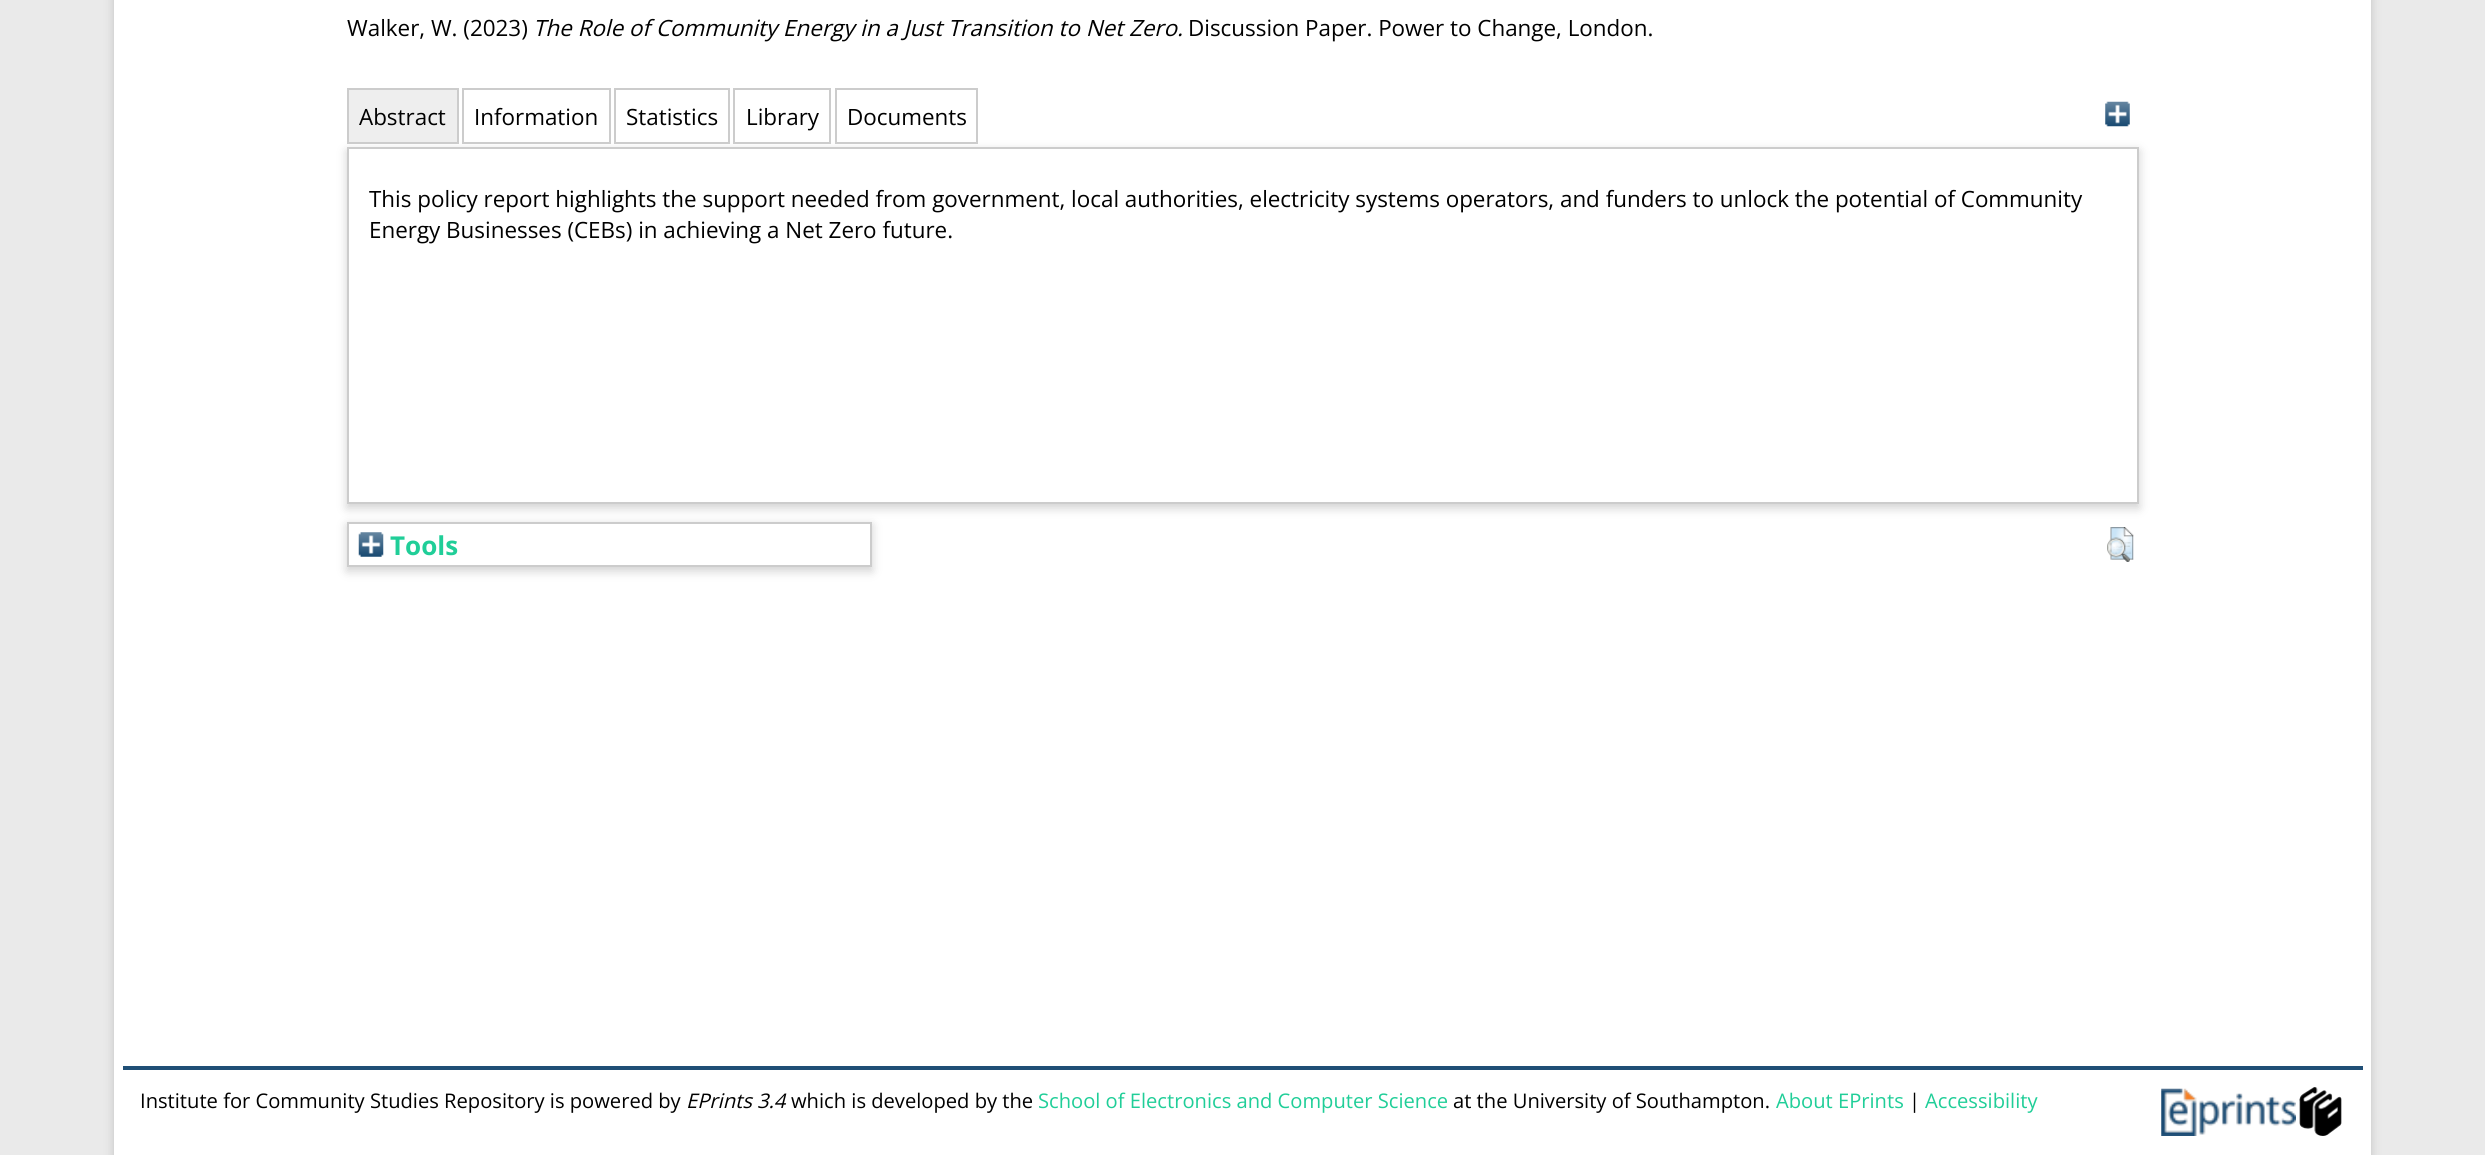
#include <cairo/cairo.h>
#include <math.h>
#include <stddef.h>

typedef struct { double x, y; const char *s; } line_t;
static cairo_t *cr;

static void rgb(unsigned color)
{
	cairo_set_source_rgb(cr, (color >> 16) / 255.0, (color >> 8 & 255) / 255.0, (color & 255) / 255.0);
}

static void rrect(double x, double y, double w, double h, double r)
{
	cairo_new_sub_path(cr);
	cairo_arc(cr, x + w - r, y + h - r, r, 0, M_PI / 2);
	cairo_arc(cr, x + r, y + h - r, r, M_PI / 2, M_PI);
	cairo_arc(cr, x + r, y + r, r, M_PI, 1.5 * M_PI);
	cairo_arc(cr, x + w - r, y + r, r, 1.5 * M_PI, 2 * M_PI);
	cairo_close_path(cr);
}

static void soft_shadow(double x, double y, double w, double h, double r, double blur, double alpha)
{
	cairo_push_group_with_content(cr, CAIRO_CONTENT_ALPHA);
	cairo_set_operator(cr, CAIRO_OPERATOR_SOURCE);
	for (int i = 15; i >= -15 && fmin(w, h) + blur * i / 3 > 0; i -= 2) {
		double e = blur * i / 6;
		cairo_set_source_rgba(cr, 0, 0, 0, alpha * erfc((i - 1) / 8.5) / 2);
		rrect(x - e, y - e, w + 2 * e, h + 2 * e, fmax(0, fmin(r + e + blur * .6, fmin(w, h) / 2 + e)));
		cairo_fill(cr);
	}
	cairo_pattern_t *soft = cairo_pop_group(cr);
	cairo_mask(cr, soft);
	cairo_pattern_destroy(soft);
}

static void image(const char *path, double x, double y, double w, double h)
{
	cairo_surface_t *image = cairo_image_surface_create_from_png(path);
	cairo_save(cr);
	cairo_set_source_surface(cr, image, x, y);
	cairo_rectangle(cr, x, y, w, h);
	cairo_fill(cr);
	cairo_restore(cr);
	cairo_surface_destroy(image);
}

int main(void) {
	cairo_surface_t *surface = cairo_image_surface_create(CAIRO_FORMAT_RGB24, 2485, 1155);
	cr = cairo_create(surface);
	cairo_font_options_t *options = cairo_font_options_create();
	cairo_font_options_set_hint_metrics(options, CAIRO_HINT_METRICS_OFF);
	cairo_font_options_set_hint_style(options, CAIRO_HINT_STYLE_NONE);
	cairo_set_font_options(cr, options);
	cairo_set_miter_limit(cr, 4);
	rgb(0xeaeaea);
	cairo_paint(cr);
	rgb(0x646464);
	soft_shadow(114, -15, 2257, 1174, 0, 5, 0.3);
	rgb(0xffffff);
	cairo_rectangle(cr, 114, 0, 2257, 1155);
	cairo_fill(cr);
	cairo_save(cr);
	cairo_set_fill_rule(cr, CAIRO_FILL_RULE_EVEN_ODD);
	cairo_new_path(cr);
	cairo_move_to(cr, 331, 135);
	cairo_line_to(cr, 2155, 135);
	cairo_line_to(cr, 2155, 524);
	cairo_line_to(cr, 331, 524);
	cairo_close_path(cr);
	cairo_move_to(cr, 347, 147);
	cairo_line_to(cr, 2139, 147);
	cairo_line_to(cr, 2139, 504);
	cairo_line_to(cr, 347, 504);
	cairo_close_path(cr);
	cairo_clip(cr);
	rgb(0x646464);
	soft_shadow(347, 151, 1792, 357, 0, 5, 0.3);
	cairo_restore(cr);
	rgb(0xeeeeee);
	cairo_rectangle(cr, 348, 89, 110, 54);
	cairo_fill_preserve(cr);
	rgb(0xcccccc);
	cairo_stroke(cr);
	cairo_rectangle(cr, 463, 89, 147, 54);
	cairo_stroke(cr);
	cairo_rectangle(cr, 615, 89, 114, 54);
	cairo_stroke(cr);
	cairo_rectangle(cr, 734, 89, 96, 54);
	cairo_stroke(cr);
	cairo_rectangle(cr, 836, 89, 141, 54);
	cairo_stroke(cr);
	image("img/1.png", 2105, 101, 25, 26);
	cairo_rectangle(cr, 348, 148, 1790, 355);
	cairo_stroke(cr);
	image("img/2.png", 2107, 527, 27, 35);
	rgb(0x646464);
	soft_shadow(347, 525, 525, 46, 0, 5, 0.3);
	rgb(0xffffff);
	cairo_rectangle(cr, 348, 523, 523, 43);
	cairo_fill_preserve(cr);
	rgb(0xcccccc);
	cairo_stroke(cr);
	image("img/3.png", 358, 532, 26, 25);
	rgb(0x204f76);
	cairo_rectangle(cr, 123, 1066, 2240, 4);
	cairo_fill(cr);
	image("img/4.png", 2161, 1088, 135, 48);
	image("img/5.png", 2299, 1087, 43, 49);
	cairo_select_font_face(cr, "Open Sans", CAIRO_FONT_SLANT_NORMAL, CAIRO_FONT_WEIGHT_NORMAL);
	cairo_set_font_size(cr, 22.4);
	rgb(0x000000);
	cairo_move_to(cr, 347, 36);
	cairo_show_text(cr, "Walker, W. (2023)");
	cairo_select_font_face(cr, "Open Sans", CAIRO_FONT_SLANT_ITALIC, CAIRO_FONT_WEIGHT_NORMAL);
	cairo_move_to(cr, 533, 36);
	cairo_show_text(cr, "The Role of Community Energy in a Just Transition to Net Zero.");
	cairo_select_font_face(cr, "Open Sans", CAIRO_FONT_SLANT_NORMAL, CAIRO_FONT_WEIGHT_NORMAL);
	{
		static const line_t items[] = {
			{1188, 36, "Discussion Paper. Power to Change, London."},
			{359, 125, "Abstract"},
			{474, 125, "Information"},
			{626, 125, "Statistics"},
			{746, 125, "Library"},
			{847, 125, "Documents"},
			{369, 207, "This policy report highlights the support needed from government, local authorities, electricity systems operators, and funders to unlock the potential of Community"},
			{369, 238, "Energy Businesses (CEBs) in achieving a Net Zero future."},
		};
		for (size_t i = 0; i < sizeof items / sizeof *items; i++) {
			cairo_move_to(cr, items[i].x, items[i].y);
			cairo_show_text(cr, items[i].s);
		}
	}
	cairo_select_font_face(cr, "Open Sans", CAIRO_FONT_SLANT_NORMAL, CAIRO_FONT_WEIGHT_BOLD);
	cairo_set_font_size(cr, 26);
	rgb(0x20ce98);
	cairo_move_to(cr, 390, 555);
	cairo_show_text(cr, "Tools");
	cairo_select_font_face(cr, "Open Sans", CAIRO_FONT_SLANT_NORMAL, CAIRO_FONT_WEIGHT_NORMAL);
	cairo_set_font_size(cr, 20.15);
	rgb(0x000000);
	cairo_move_to(cr, 140, 1108);
	cairo_show_text(cr, "Institute for Community Studies Repository is powered by");
	cairo_select_font_face(cr, "Open Sans", CAIRO_FONT_SLANT_ITALIC, CAIRO_FONT_WEIGHT_NORMAL);
	cairo_move_to(cr, 686, 1108);
	cairo_show_text(cr, "EPrints 3.4");
	cairo_select_font_face(cr, "Open Sans", CAIRO_FONT_SLANT_NORMAL, CAIRO_FONT_WEIGHT_NORMAL);
	cairo_move_to(cr, 791, 1108);
	cairo_show_text(cr, "which is developed by the");
	rgb(0x20ce98);
	cairo_move_to(cr, 1038, 1108);
	cairo_show_text(cr, "School of Electronics and Computer Science");
	rgb(0x000000);
	cairo_move_to(cr, 1453, 1108);
	cairo_show_text(cr, "at the University of Southampton.");
	rgb(0x20ce98);
	cairo_move_to(cr, 1776, 1108);
	cairo_show_text(cr, "About EPrints");
	rgb(0x000000);
	cairo_move_to(cr, 1909, 1108);
	cairo_show_text(cr, "|");
	rgb(0x20ce98);
	cairo_move_to(cr, 1925, 1108);
	cairo_show_text(cr, "Accessibility");
	cairo_surface_write_to_png(surface, "page.png");
	cairo_font_options_destroy(options);
	cairo_destroy(cr);
	cairo_surface_destroy(surface);
	return 0;
}
